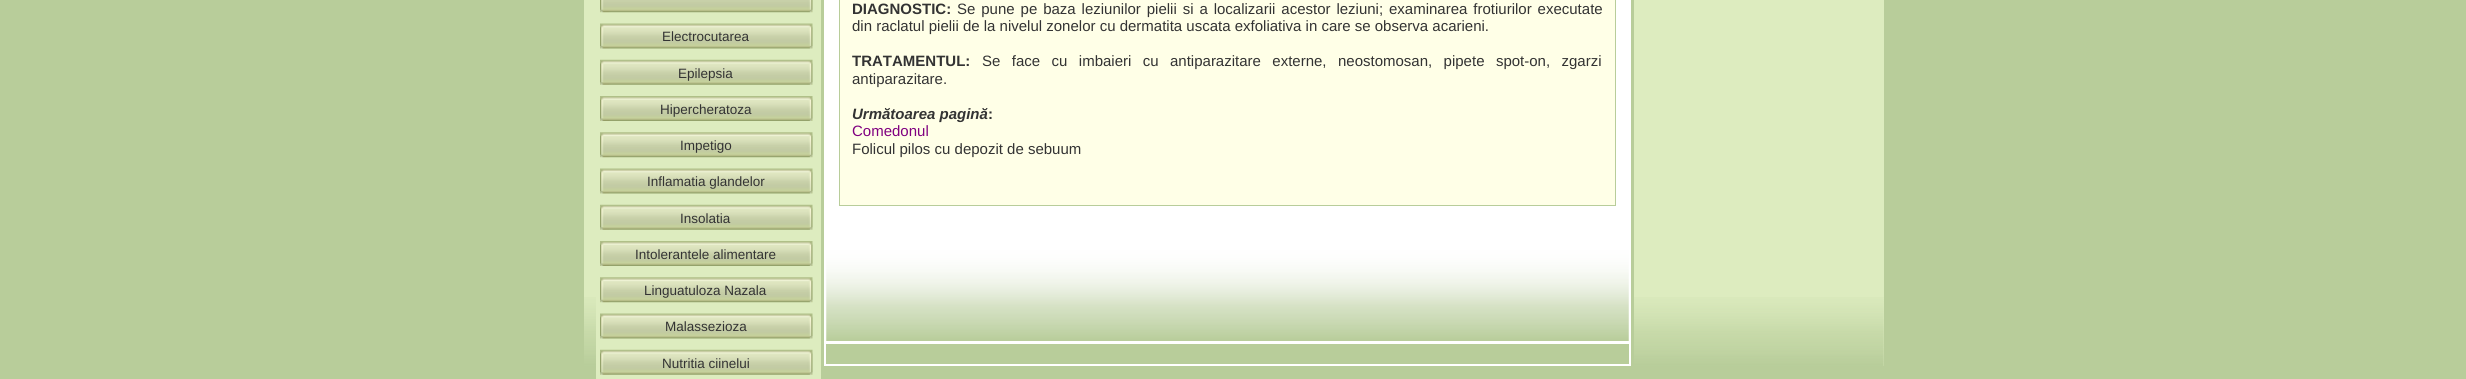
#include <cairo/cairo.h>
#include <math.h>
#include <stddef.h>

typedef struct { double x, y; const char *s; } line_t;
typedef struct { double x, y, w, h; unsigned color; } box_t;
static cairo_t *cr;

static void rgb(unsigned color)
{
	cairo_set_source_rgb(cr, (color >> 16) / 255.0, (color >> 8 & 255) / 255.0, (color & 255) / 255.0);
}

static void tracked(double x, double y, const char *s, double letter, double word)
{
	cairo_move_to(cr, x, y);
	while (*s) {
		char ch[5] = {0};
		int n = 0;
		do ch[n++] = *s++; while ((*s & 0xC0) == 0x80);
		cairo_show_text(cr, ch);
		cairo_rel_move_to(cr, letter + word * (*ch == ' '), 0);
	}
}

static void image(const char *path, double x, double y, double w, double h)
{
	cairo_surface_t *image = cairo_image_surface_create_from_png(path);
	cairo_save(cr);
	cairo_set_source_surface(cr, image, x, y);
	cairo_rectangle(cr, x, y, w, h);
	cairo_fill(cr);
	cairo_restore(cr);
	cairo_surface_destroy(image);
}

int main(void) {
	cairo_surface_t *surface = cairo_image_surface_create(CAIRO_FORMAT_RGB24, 2466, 379);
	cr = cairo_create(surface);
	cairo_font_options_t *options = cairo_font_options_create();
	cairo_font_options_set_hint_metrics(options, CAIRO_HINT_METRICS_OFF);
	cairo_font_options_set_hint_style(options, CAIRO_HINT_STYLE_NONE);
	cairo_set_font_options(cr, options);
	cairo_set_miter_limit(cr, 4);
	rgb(0xb8cd9a);
	cairo_paint(cr);
	rgb(0xddecbf);
	cairo_rectangle(cr, 584, 0, 1300, 366);
	cairo_fill(cr);
	image("img/1.png", 584, 297, 1300, 69);
	cairo_rectangle(cr, 596, 297, 225, 82);
	cairo_fill(cr);
	image("img/2.png", 600, 0, 213, 13);
	image("img/3.png", 600, 23, 213, 26);
	image("img/4.png", 600, 59, 213, 26);
	image("img/5.png", 600, 96, 213, 25);
	image("img/6.png", 600, 132, 213, 26);
	image("img/3.png", 600, 168, 213, 26);
	image("img/4.png", 600, 204, 213, 26);
	image("img/5.png", 600, 241, 213, 25);
	image("img/6.png", 600, 277, 213, 26);
	image("img/3.png", 600, 313, 213, 26);
	image("img/4.png", 600, 349, 213, 26);
	{
		static const box_t items[] = {
			{824, 0, 807, 366, 0xffffff},
			{1631, 0, 3, 366, 0xb8cd9a},
			{821, 0, 3, 366, 0xb8cd9a},
		};
		for (size_t i = 0; i < sizeof items / sizeof *items; i++) {
			rgb(items[i].color);
			cairo_rectangle(cr, items[i].x, items[i].y, items[i].w, items[i].h);
			cairo_fill(cr);
		}
	}
	rgb(0xffffe7);
	cairo_rectangle(cr, 839.5, -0.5, 776, 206);
	cairo_fill_preserve(cr);
	rgb(0xb8cd9a);
	cairo_set_line_width(cr, 1);
	cairo_stroke(cr);
	image("img/7.png", 826, 246, 803, 95);
	cairo_rectangle(cr, 826, 344, 803, 20);
	cairo_fill(cr);
	cairo_select_font_face(cr, "Liberation Sans", CAIRO_FONT_SLANT_NORMAL, CAIRO_FONT_WEIGHT_NORMAL);
	cairo_set_font_size(cr, 13.5);
	rgb(0x333333);
	{
		static const line_t items[] = {
			{662, 41, "Electrocutarea"},
			{678, 78, "Epilepsia"},
			{660, 114, "Hipercheratoza"},
			{680, 150, "Impetigo"},
			{647, 186, "Inflamatia glandelor"},
			{680, 223, "Insolatia"},
			{635, 259, "Intolerantele alimentare"},
			{644, 295, "Linguatuloza Nazala"},
			{665, 331, "Malassezioza"},
			{662, 368, "Nutritia ciinelui"},
		};
		for (size_t i = 0; i < sizeof items / sizeof *items; i++) {
			cairo_move_to(cr, items[i].x, items[i].y);
			cairo_show_text(cr, items[i].s);
		}
	}
	cairo_select_font_face(cr, "Liberation Sans", CAIRO_FONT_SLANT_NORMAL, CAIRO_FONT_WEIGHT_BOLD);
	cairo_set_font_size(cr, 15);
	cairo_move_to(cr, 852, 14);
	cairo_show_text(cr, "DIAGNOSTIC:");
	cairo_select_font_face(cr, "Liberation Sans", CAIRO_FONT_SLANT_NORMAL, CAIRO_FONT_WEIGHT_NORMAL);
	tracked(957, 14, "Se pune pe baza leziunilor pielii si a localizarii acestor leziuni; examinarea frotiurilor executate", 0, 1.75);
	cairo_move_to(cr, 852, 31);
	cairo_show_text(cr, "din raclatul pielii de la nivelul zonelor cu dermatita uscata exfoliativa in care se observa acarieni.");
	cairo_select_font_face(cr, "Liberation Sans", CAIRO_FONT_SLANT_NORMAL, CAIRO_FONT_WEIGHT_BOLD);
	cairo_move_to(cr, 852, 66);
	cairo_show_text(cr, "TRATAMENTUL:");
	cairo_select_font_face(cr, "Liberation Sans", CAIRO_FONT_SLANT_NORMAL, CAIRO_FONT_WEIGHT_NORMAL);
	tracked(982, 66, "Se face cu imbaieri cu antiparazitare externe, neostomosan, pipete spot-on, zgarzi", 0, 7.25);
	cairo_move_to(cr, 852, 84);
	cairo_show_text(cr, "antiparazitare.");
	cairo_select_font_face(cr, "Liberation Sans", CAIRO_FONT_SLANT_ITALIC, CAIRO_FONT_WEIGHT_BOLD);
	cairo_move_to(cr, 852, 119);
	cairo_show_text(cr, "Următoarea pagină");
	cairo_select_font_face(cr, "Liberation Sans", CAIRO_FONT_SLANT_NORMAL, CAIRO_FONT_WEIGHT_BOLD);
	cairo_move_to(cr, 988, 119);
	cairo_show_text(cr, ":");
	cairo_select_font_face(cr, "Liberation Sans", CAIRO_FONT_SLANT_NORMAL, CAIRO_FONT_WEIGHT_NORMAL);
	rgb(0x800080);
	cairo_move_to(cr, 852, 136);
	cairo_show_text(cr, "Comedonul");
	rgb(0x333333);
	cairo_move_to(cr, 852, 154);
	cairo_show_text(cr, "Folicul pilos cu depozit de sebuum");
	cairo_surface_write_to_png(surface, "page.png");
	cairo_font_options_destroy(options);
	cairo_destroy(cr);
	cairo_surface_destroy(surface);
	return 0;
}
